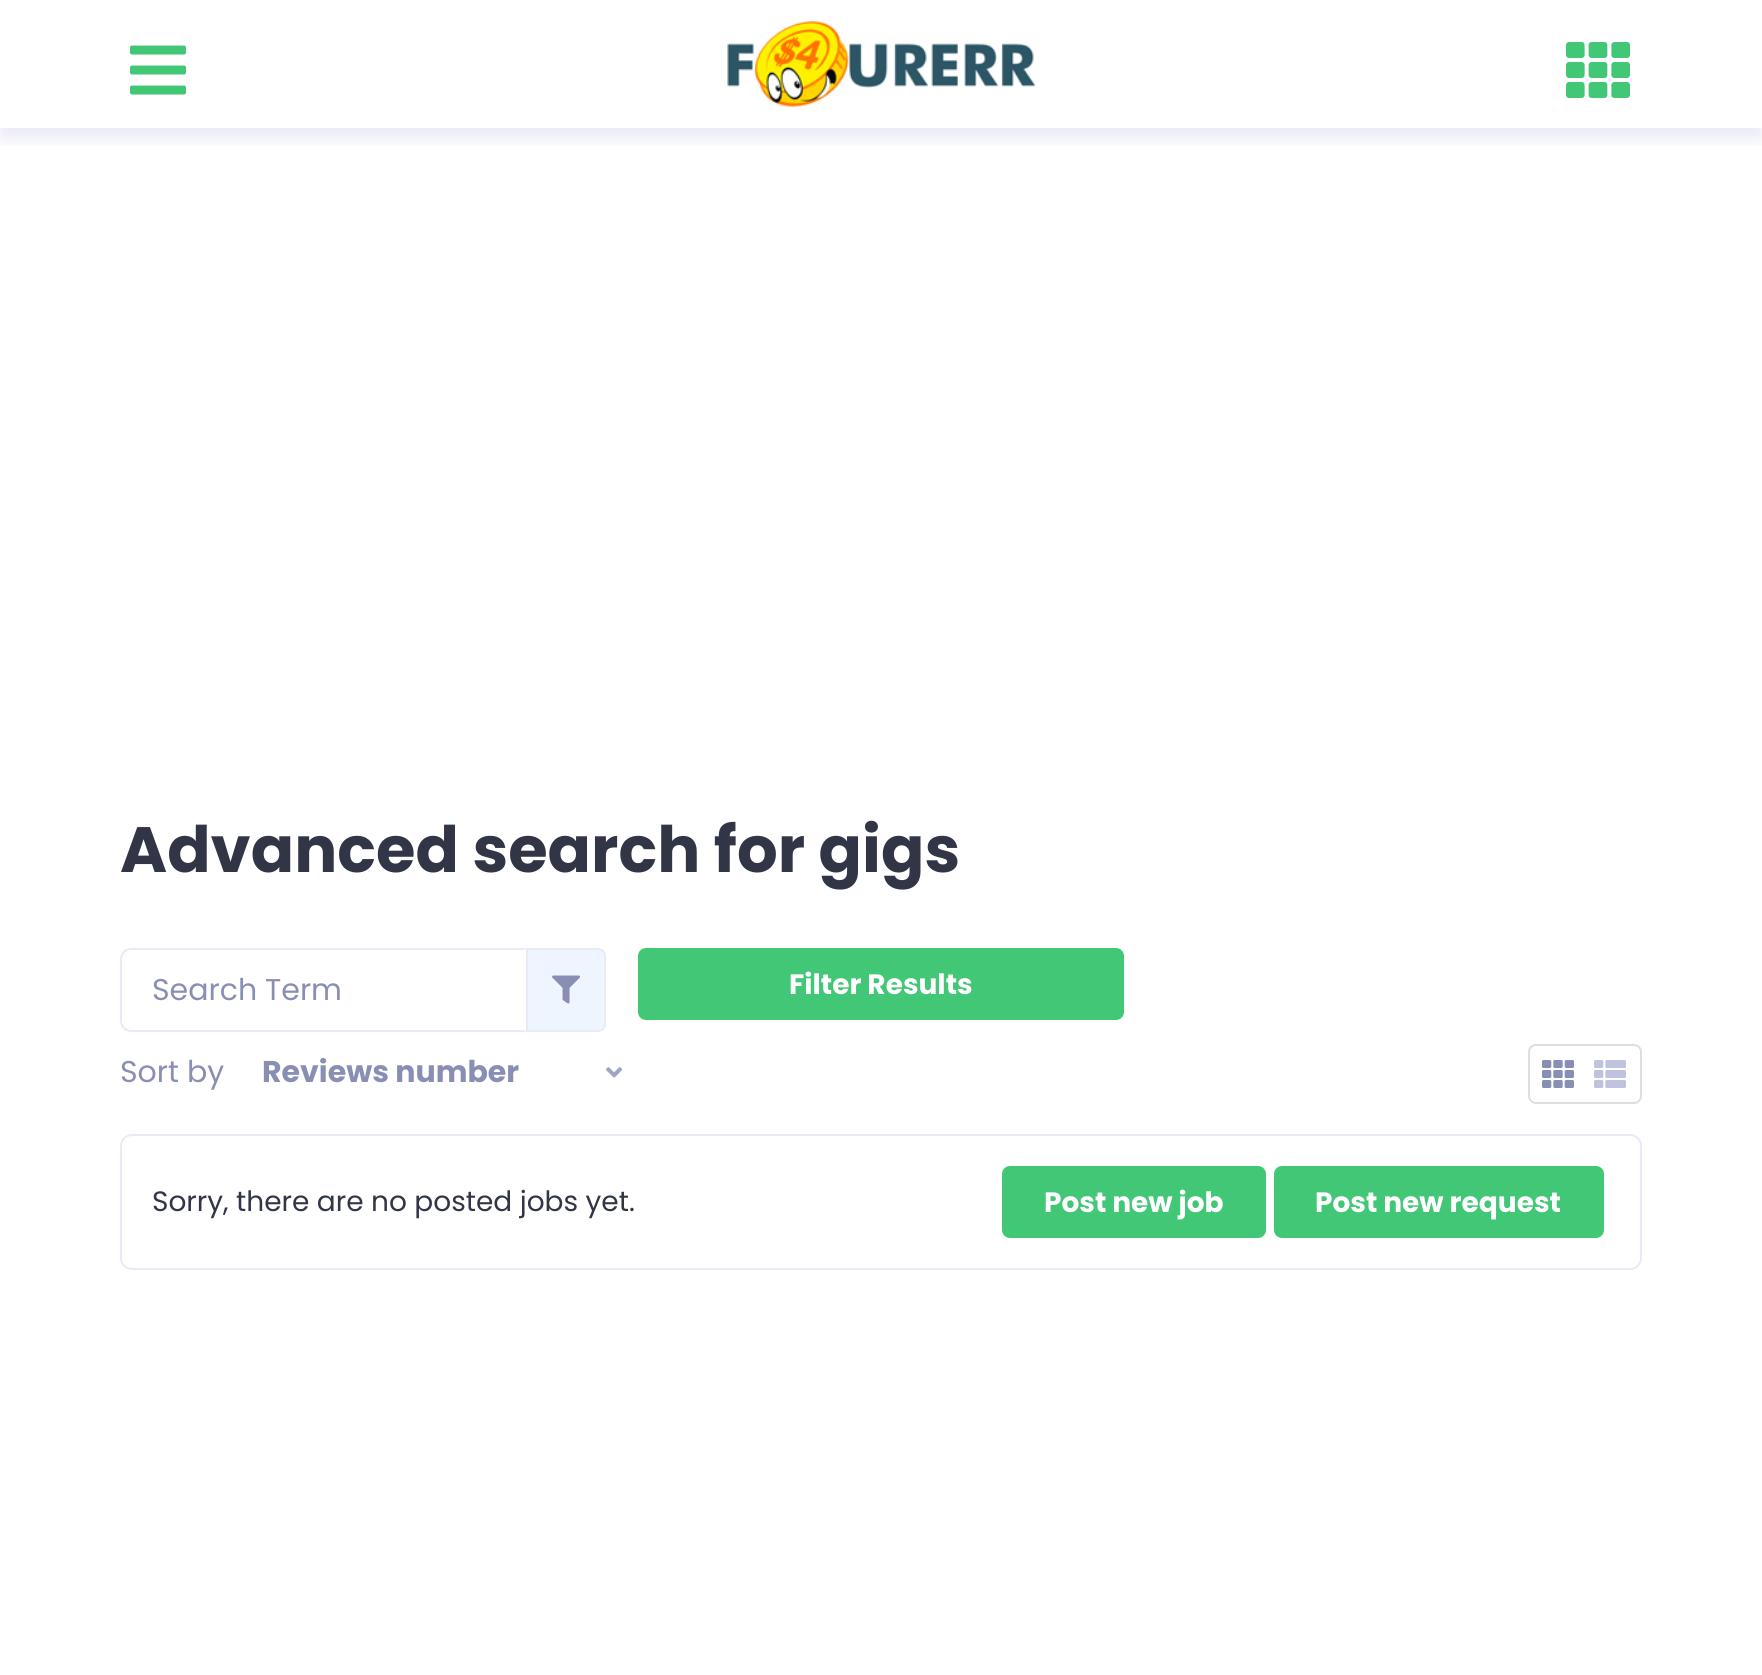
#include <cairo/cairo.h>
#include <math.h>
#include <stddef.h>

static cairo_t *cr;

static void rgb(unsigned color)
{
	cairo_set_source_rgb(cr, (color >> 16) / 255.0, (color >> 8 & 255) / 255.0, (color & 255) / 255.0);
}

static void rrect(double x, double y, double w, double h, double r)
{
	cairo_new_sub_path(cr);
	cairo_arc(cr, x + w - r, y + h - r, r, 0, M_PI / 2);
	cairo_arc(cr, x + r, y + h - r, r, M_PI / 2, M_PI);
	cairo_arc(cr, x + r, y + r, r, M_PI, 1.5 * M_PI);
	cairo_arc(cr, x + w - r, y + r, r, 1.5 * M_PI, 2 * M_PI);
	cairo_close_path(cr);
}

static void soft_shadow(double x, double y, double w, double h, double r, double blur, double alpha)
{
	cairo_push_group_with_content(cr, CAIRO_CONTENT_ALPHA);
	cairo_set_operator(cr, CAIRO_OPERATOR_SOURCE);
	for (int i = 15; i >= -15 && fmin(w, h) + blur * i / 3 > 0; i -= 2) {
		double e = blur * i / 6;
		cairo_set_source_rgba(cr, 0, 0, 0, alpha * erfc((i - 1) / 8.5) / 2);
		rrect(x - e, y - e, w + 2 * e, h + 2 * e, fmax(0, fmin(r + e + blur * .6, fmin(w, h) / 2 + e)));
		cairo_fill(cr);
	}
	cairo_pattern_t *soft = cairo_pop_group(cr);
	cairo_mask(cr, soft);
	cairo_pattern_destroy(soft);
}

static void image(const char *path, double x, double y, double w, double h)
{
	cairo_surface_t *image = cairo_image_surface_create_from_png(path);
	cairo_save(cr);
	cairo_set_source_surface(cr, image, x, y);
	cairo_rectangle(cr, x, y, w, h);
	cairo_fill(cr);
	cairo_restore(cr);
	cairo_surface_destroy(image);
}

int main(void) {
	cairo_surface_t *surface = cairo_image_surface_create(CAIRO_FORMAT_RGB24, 1762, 1675);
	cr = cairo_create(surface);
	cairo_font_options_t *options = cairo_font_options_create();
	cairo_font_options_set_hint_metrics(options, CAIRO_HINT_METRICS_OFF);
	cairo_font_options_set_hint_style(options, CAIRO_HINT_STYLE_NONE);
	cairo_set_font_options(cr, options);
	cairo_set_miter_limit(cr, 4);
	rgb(0xffffff);
	cairo_paint(cr);
	cairo_save(cr);
	cairo_rectangle(cr, 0, 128, 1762, 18);
	cairo_clip(cr);
	rgb(0x121c90);
	soft_shadow(0, 10, 1762, 128, 0, 10, 0.1);
	cairo_restore(cr);
	image("img/1.png", 130, 45, 56, 50);
	image("img/2.png", 727, 21, 308, 86);
	image("img/3.png", 1566, 42, 64, 56);
	rgb(0xe8ebf6);
	cairo_new_path(cr);
	cairo_move_to(cr, 132, 948);
	cairo_curve_to(cr, 128, 948, 126, 949, 123, 951);
	cairo_line_to(cr, 125, 953);
	cairo_curve_to(cr, 126, 951, 129, 950, 132, 950);
	cairo_line_to(cr, 524, 950);
	cairo_line_to(cr, 526, 948);
	cairo_close_path(cr);
	cairo_fill(cr);
	cairo_new_path(cr);
	cairo_move_to(cr, 526, 1032);
	cairo_line_to(cr, 524, 1030);
	cairo_line_to(cr, 132, 1030);
	cairo_curve_to(cr, 129, 1030, 126, 1029, 125, 1027);
	cairo_line_to(cr, 123, 1029);
	cairo_curve_to(cr, 126, 1031, 128, 1032, 132, 1032);
	cairo_close_path(cr);
	cairo_fill(cr);
	cairo_new_path(cr);
	cairo_move_to(cr, 120, 960);
	cairo_line_to(cr, 120, 1020);
	cairo_curve_to(cr, 120, 1024, 121, 1026, 123, 1029);
	cairo_line_to(cr, 125, 1027);
	cairo_curve_to(cr, 123, 1026, 122, 1023, 122, 1020);
	cairo_line_to(cr, 122, 960);
	cairo_curve_to(cr, 122, 957, 123, 954, 125, 953);
	cairo_line_to(cr, 123, 951);
	cairo_curve_to(cr, 121, 954, 120, 956, 120, 960);
	cairo_close_path(cr);
	cairo_fill(cr);
	rgb(0xeff5ff);
	cairo_new_path(cr);
	cairo_move_to(cr, 527, 949);
	cairo_line_to(cr, 598, 949);
	cairo_curve_to(cr, 602, 949, 605, 952, 605, 956);
	cairo_line_to(cr, 605, 1024);
	cairo_curve_to(cr, 605, 1028, 602, 1031, 598, 1031);
	cairo_line_to(cr, 527, 1031);
	cairo_close_path(cr);
	cairo_fill_preserve(cr);
	rgb(0xe8ebf6);
	cairo_stroke(cr);
	image("img/4.png", 552, 975, 28, 29);
	rgb(0x42c777);
	rrect(638, 948, 486, 72, 8);
	cairo_fill(cr);
	image("img/5.png", 606, 1067, 17, 11);
	rrect(1529, 1045, 112, 58, 7);
	rgb(0xdedede);
	cairo_stroke(cr);
	image("img/6.png", 1542, 1060, 32, 28);
	image("img/7.png", 1594, 1060, 32, 28);
	rrect(121, 1135, 1520, 134, 11);
	rgb(0xe8ebf6);
	cairo_stroke(cr);
	rgb(0x42c777);
	rrect(1002, 1166, 264, 72, 8);
	cairo_fill(cr);
	rrect(1274, 1166, 330, 72, 8);
	cairo_fill(cr);
	cairo_select_font_face(cr, "Poppins", CAIRO_FONT_SLANT_NORMAL, CAIRO_FONT_WEIGHT_BOLD);
	cairo_set_font_size(cr, 64);
	rgb(0x313546);
	cairo_move_to(cr, 120, 872);
	cairo_show_text(cr, "Advanced search for gigs");
	cairo_select_font_face(cr, "Poppins", CAIRO_FONT_SLANT_NORMAL, CAIRO_FONT_WEIGHT_NORMAL);
	cairo_set_font_size(cr, 30);
	rgb(0x898eb4);
	cairo_move_to(cr, 152, 1000);
	cairo_show_text(cr, "Search Term");
	cairo_select_font_face(cr, "Poppins", CAIRO_FONT_SLANT_NORMAL, CAIRO_FONT_WEIGHT_BOLD);
	cairo_set_font_size(cr, 28);
	rgb(0xffffff);
	cairo_move_to(cr, 789, 994);
	cairo_show_text(cr, "Filter Results");
	cairo_select_font_face(cr, "Poppins", CAIRO_FONT_SLANT_NORMAL, CAIRO_FONT_WEIGHT_NORMAL);
	cairo_set_font_size(cr, 30);
	rgb(0x898eb4);
	cairo_move_to(cr, 120, 1082);
	cairo_show_text(cr, "Sort by");
	cairo_select_font_face(cr, "Poppins", CAIRO_FONT_SLANT_NORMAL, CAIRO_FONT_WEIGHT_BOLD);
	cairo_move_to(cr, 262, 1082);
	cairo_show_text(cr, "Reviews number");
	cairo_select_font_face(cr, "Poppins", CAIRO_FONT_SLANT_NORMAL, CAIRO_FONT_WEIGHT_NORMAL);
	cairo_set_font_size(cr, 28);
	rgb(0x313546);
	cairo_move_to(cr, 152, 1211);
	cairo_show_text(cr, "Sorry, there are no posted jobs yet.");
	cairo_select_font_face(cr, "Poppins", CAIRO_FONT_SLANT_NORMAL, CAIRO_FONT_WEIGHT_BOLD);
	rgb(0xffffff);
	cairo_move_to(cr, 1044, 1212);
	cairo_show_text(cr, "Post new job");
	cairo_move_to(cr, 1315, 1212);
	cairo_show_text(cr, "Post new request");
	cairo_surface_write_to_png(surface, "page.png");
	cairo_font_options_destroy(options);
	cairo_destroy(cr);
	cairo_surface_destroy(surface);
	return 0;
}
